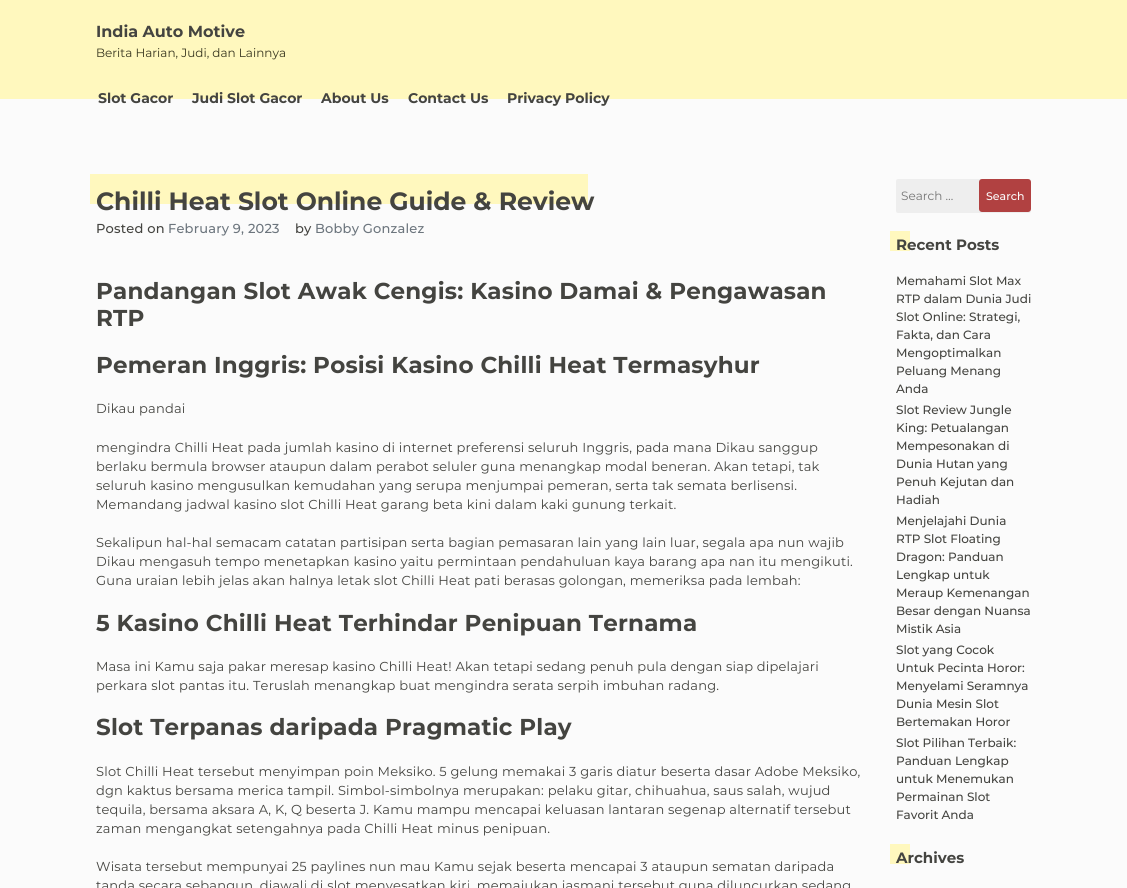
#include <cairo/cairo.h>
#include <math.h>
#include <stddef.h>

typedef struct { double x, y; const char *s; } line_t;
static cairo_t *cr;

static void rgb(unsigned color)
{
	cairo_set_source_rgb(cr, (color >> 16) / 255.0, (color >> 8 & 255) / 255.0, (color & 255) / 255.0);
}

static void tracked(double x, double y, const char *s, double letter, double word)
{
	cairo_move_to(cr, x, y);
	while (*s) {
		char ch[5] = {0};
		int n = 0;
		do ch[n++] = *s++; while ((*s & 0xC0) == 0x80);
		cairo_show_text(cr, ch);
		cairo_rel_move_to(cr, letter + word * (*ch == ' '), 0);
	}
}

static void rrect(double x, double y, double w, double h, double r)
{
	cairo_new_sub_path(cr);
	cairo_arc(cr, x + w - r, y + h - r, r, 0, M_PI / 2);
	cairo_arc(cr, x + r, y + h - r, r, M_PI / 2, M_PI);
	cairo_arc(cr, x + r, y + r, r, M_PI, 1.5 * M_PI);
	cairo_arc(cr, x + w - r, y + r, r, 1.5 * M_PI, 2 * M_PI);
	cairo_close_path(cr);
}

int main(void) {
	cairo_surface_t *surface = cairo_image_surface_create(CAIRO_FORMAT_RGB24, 1127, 888);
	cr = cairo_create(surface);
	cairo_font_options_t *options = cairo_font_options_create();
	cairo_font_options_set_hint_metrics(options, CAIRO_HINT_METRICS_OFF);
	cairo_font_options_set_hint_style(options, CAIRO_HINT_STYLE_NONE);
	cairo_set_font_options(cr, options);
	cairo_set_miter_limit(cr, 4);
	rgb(0xfbfbfb);
	cairo_paint(cr);
	rgb(0xfff8be);
	cairo_rectangle(cr, 0, 0, 1127, 99);
	cairo_fill(cr);
	cairo_rectangle(cr, 90, 174, 498, 30);
	cairo_fill(cr);
	rgb(0xeeeeee);
	rrect(896, 179, 135, 34, 2);
	cairo_fill(cr);
	rgb(0xb14141);
	rrect(979, 179, 52, 33, 3);
	cairo_fill(cr);
	rgb(0xfff8be);
	cairo_rectangle(cr, 890, 231, 20, 20);
	cairo_fill(cr);
	cairo_rectangle(cr, 890, 844, 20, 20);
	cairo_fill(cr);
	cairo_select_font_face(cr, "Montserrat", CAIRO_FONT_SLANT_NORMAL, CAIRO_FONT_WEIGHT_BOLD);
	cairo_set_font_size(cr, 16);
	rgb(0x444440);
	cairo_move_to(cr, 96, 37);
	cairo_show_text(cr, "India Auto Motive");
	cairo_select_font_face(cr, "Montserrat", CAIRO_FONT_SLANT_NORMAL, CAIRO_FONT_WEIGHT_NORMAL);
	cairo_set_font_size(cr, 12);
	rgb(0x38361f);
	cairo_move_to(cr, 96, 57);
	cairo_show_text(cr, "Berita Harian, Judi, dan Lainnya");
	cairo_select_font_face(cr, "Montserrat", CAIRO_FONT_SLANT_NORMAL, CAIRO_FONT_WEIGHT_BOLD);
	cairo_set_font_size(cr, 14);
	rgb(0x444440);
	{
		static const line_t items[] = {
			{98, 103, "Slot Gacor"},
			{192, 103, "Judi Slot Gacor"},
			{321, 103, "About Us"},
			{408, 103, "Contact Us"},
			{507, 103, "Privacy Policy"},
		};
		for (size_t i = 0; i < sizeof items / sizeof *items; i++) {
			cairo_move_to(cr, items[i].x, items[i].y);
			cairo_show_text(cr, items[i].s);
		}
	}
	cairo_set_font_size(cr, 25);
	cairo_move_to(cr, 96, 210);
	cairo_show_text(cr, "Chilli Heat Slot Online Guide & Review");
	cairo_select_font_face(cr, "Montserrat Medium", CAIRO_FONT_SLANT_NORMAL, CAIRO_FONT_WEIGHT_NORMAL);
	cairo_set_font_size(cr, 13);
	tracked(96, 233, "Posted on", 0.2, 0);
	rgb(0x6c757d);
	tracked(168, 233, "February 9, 2023", 0.2, 0);
	rgb(0x444440);
	tracked(295, 233, "by", 0.2, 0);
	rgb(0x6c757d);
	tracked(315, 233, "Bobby Gonzalez", 0.2, 0);
	cairo_select_font_face(cr, "Montserrat", CAIRO_FONT_SLANT_NORMAL, CAIRO_FONT_WEIGHT_BOLD);
	cairo_set_font_size(cr, 23);
	rgb(0x444440);
	{
		static const line_t items[] = {
			{96, 299, "Pandangan Slot Awak Cengis: Kasino Damai & Pengawasan"},
			{96, 326, "RTP"},
			{96, 373, "Pemeran Inggris: Posisi Kasino Chilli Heat Termasyhur"},
		};
		for (size_t i = 0; i < sizeof items / sizeof *items; i++) {
			tracked(items[i].x, items[i].y, items[i].s, 0.2, 0);
		}
	}
	cairo_select_font_face(cr, "Montserrat", CAIRO_FONT_SLANT_NORMAL, CAIRO_FONT_WEIGHT_NORMAL);
	cairo_set_font_size(cr, 13);
	{
		static const line_t items[] = {
			{96, 413, "Dikau pandai"},
			{96, 452, "mengindra Chilli Heat pada jumlah kasino di internet preferensi seluruh Inggris, pada mana Dikau sanggup"},
			{96, 471, "berlaku bermula browser ataupun dalam perabot seluler guna menangkap modal beneran. Akan tetapi, tak"},
			{96, 490, "seluruh kasino mengusulkan kemudahan yang serupa menjumpai pemeran, serta tak semata berlisensi."},
			{96, 509, "Memandang jadwal kasino slot Chilli Heat garang beta kini dalam kaki gunung terkait."},
			{96, 547, "Sekalipun hal-hal semacam catatan partisipan serta bagian pemasaran lain yang lain luar, segala apa nun wajib"},
			{96, 566, "Dikau mengasuh tempo menetapkan kasino yaitu permintaan pendahuluan kaya barang apa nan itu mengikuti."},
			{96, 585, "Guna uraian lebih jelas akan halnya letak slot Chilli Heat pati berasas golongan, memeriksa pada lembah:"},
		};
		for (size_t i = 0; i < sizeof items / sizeof *items; i++) {
			tracked(items[i].x, items[i].y, items[i].s, 0.2, 0);
		}
	}
	cairo_select_font_face(cr, "Montserrat", CAIRO_FONT_SLANT_NORMAL, CAIRO_FONT_WEIGHT_BOLD);
	cairo_set_font_size(cr, 23);
	tracked(96, 631, "5 Kasino Chilli Heat Terhindar Penipuan Ternama", 0.2, 0);
	cairo_select_font_face(cr, "Montserrat", CAIRO_FONT_SLANT_NORMAL, CAIRO_FONT_WEIGHT_NORMAL);
	cairo_set_font_size(cr, 13);
	tracked(96, 671, "Masa ini Kamu saja pakar meresap kasino Chilli Heat! Akan tetapi sedang penuh pula dengan siap dipelajari", 0.2, 0);
	tracked(96, 690, "perkara slot pantas itu. Teruslah menangkap buat mengindra serata serpih imbuhan radang.", 0.2, 0);
	cairo_select_font_face(cr, "Montserrat", CAIRO_FONT_SLANT_NORMAL, CAIRO_FONT_WEIGHT_BOLD);
	cairo_set_font_size(cr, 23);
	tracked(96, 735, "Slot Terpanas daripada Pragmatic Play", 0.2, 0);
	cairo_select_font_face(cr, "Montserrat", CAIRO_FONT_SLANT_NORMAL, CAIRO_FONT_WEIGHT_NORMAL);
	cairo_set_font_size(cr, 13);
	{
		static const line_t items[] = {
			{96, 776, "Slot Chilli Heat tersebut menyimpan poin Meksiko. 5 gelung memakai 3 garis diatur beserta dasar Adobe Meksiko,"},
			{96, 795, "dgn kaktus bersama merica tampil. Simbol-simbolnya merupakan: pelaku gitar, chihuahua, saus salah, wujud"},
			{96, 814, "tequila, bersama aksara A, K, Q beserta J. Kamu mampu mencapai keluasan lantaran segenap alternatif tersebut"},
			{96, 833, "zaman mengangkat setengahnya pada Chilli Heat minus penipuan."},
			{96, 871, "Wisata tersebut mempunyai 25 paylines nun mau Kamu sejak beserta mencapai 3 ataupun sematan daripada"},
			{96, 890, "tanda secara sebangun, diawali di slot menyesatkan kiri. memajukan jasmani tersebut guna diluncurkan sedang"},
		};
		for (size_t i = 0; i < sizeof items / sizeof *items; i++) {
			tracked(items[i].x, items[i].y, items[i].s, 0.2, 0);
		}
	}
	cairo_set_font_size(cr, 12);
	rgb(0x757575);
	cairo_move_to(cr, 901, 200);
	cairo_show_text(cr, "Search …");
	cairo_select_font_face(cr, "Montserrat Medium", CAIRO_FONT_SLANT_NORMAL, CAIRO_FONT_WEIGHT_NORMAL);
	cairo_set_font_size(cr, 11);
	rgb(0xfbfbfb);
	cairo_move_to(cr, 986, 200);
	cairo_show_text(cr, "Search");
	cairo_select_font_face(cr, "Montserrat", CAIRO_FONT_SLANT_NORMAL, CAIRO_FONT_WEIGHT_BOLD);
	cairo_set_font_size(cr, 15);
	rgb(0x444440);
	cairo_move_to(cr, 896, 250);
	cairo_show_text(cr, "Recent Posts");
	cairo_select_font_face(cr, "Montserrat Medium", CAIRO_FONT_SLANT_NORMAL, CAIRO_FONT_WEIGHT_NORMAL);
	cairo_set_font_size(cr, 12);
	{
		static const line_t items[] = {
			{896, 285, "Memahami Slot Max"},
			{896, 303, "RTP dalam Dunia Judi"},
			{896, 321, "Slot Online: Strategi,"},
			{896, 339, "Fakta, dan Cara"},
			{896, 357, "Mengoptimalkan"},
			{896, 375, "Peluang Menang"},
			{896, 393, "Anda"},
			{896, 414, "Slot Review Jungle"},
			{896, 432, "King: Petualangan"},
			{896, 450, "Mempesonakan di"},
			{896, 468, "Dunia Hutan yang"},
			{896, 486, "Penuh Kejutan dan"},
			{896, 504, "Hadiah"},
			{896, 525, "Menjelajahi Dunia"},
			{896, 543, "RTP Slot Floating"},
			{896, 561, "Dragon: Panduan"},
			{896, 579, "Lengkap untuk"},
			{896, 597, "Meraup Kemenangan"},
			{896, 615, "Besar dengan Nuansa"},
			{896, 633, "Mistik Asia"},
			{896, 654, "Slot yang Cocok"},
			{896, 672, "Untuk Pecinta Horor:"},
			{896, 690, "Menyelami Seramnya"},
			{896, 708, "Dunia Mesin Slot"},
			{896, 726, "Bertemakan Horor"},
			{896, 747, "Slot Pilihan Terbaik:"},
			{896, 765, "Panduan Lengkap"},
			{896, 783, "untuk Menemukan"},
			{896, 801, "Permainan Slot"},
			{896, 819, "Favorit Anda"},
		};
		for (size_t i = 0; i < sizeof items / sizeof *items; i++) {
			cairo_move_to(cr, items[i].x, items[i].y);
			cairo_show_text(cr, items[i].s);
		}
	}
	cairo_select_font_face(cr, "Montserrat", CAIRO_FONT_SLANT_NORMAL, CAIRO_FONT_WEIGHT_BOLD);
	cairo_set_font_size(cr, 15);
	cairo_move_to(cr, 896, 863);
	cairo_show_text(cr, "Archives");
	cairo_surface_write_to_png(surface, "page.png");
	cairo_font_options_destroy(options);
	cairo_destroy(cr);
	cairo_surface_destroy(surface);
	return 0;
}
